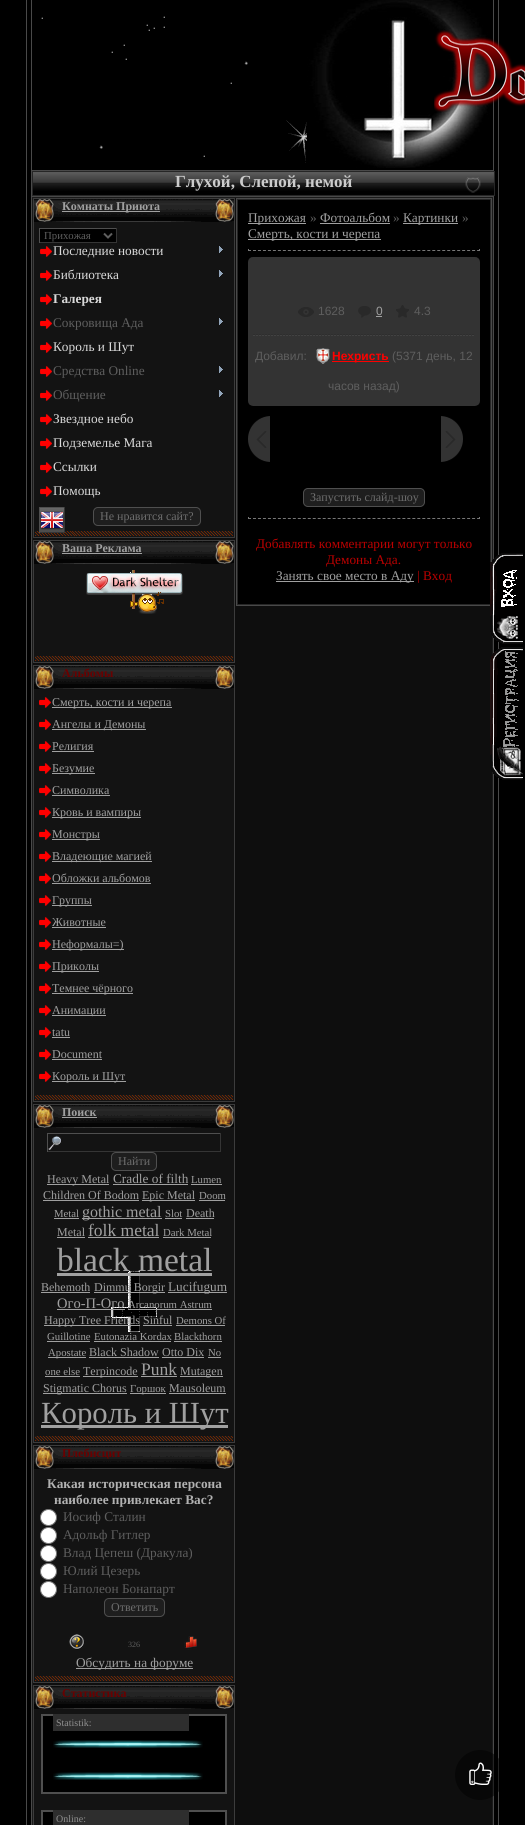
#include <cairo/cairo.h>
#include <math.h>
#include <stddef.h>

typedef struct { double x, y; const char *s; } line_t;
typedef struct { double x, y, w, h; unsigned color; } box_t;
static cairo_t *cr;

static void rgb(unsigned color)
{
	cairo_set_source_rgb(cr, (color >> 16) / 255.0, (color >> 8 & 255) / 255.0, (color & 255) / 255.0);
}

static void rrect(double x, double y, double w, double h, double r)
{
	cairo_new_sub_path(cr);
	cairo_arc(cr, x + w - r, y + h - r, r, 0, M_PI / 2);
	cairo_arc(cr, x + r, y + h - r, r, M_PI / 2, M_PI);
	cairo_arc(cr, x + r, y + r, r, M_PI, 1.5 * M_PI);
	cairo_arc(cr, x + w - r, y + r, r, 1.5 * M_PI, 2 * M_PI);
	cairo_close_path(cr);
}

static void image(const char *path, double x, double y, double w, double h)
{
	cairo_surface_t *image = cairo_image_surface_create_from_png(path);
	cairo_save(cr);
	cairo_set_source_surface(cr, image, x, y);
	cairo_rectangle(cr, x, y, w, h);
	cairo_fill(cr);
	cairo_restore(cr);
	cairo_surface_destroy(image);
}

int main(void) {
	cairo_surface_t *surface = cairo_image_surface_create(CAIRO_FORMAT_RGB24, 525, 1825);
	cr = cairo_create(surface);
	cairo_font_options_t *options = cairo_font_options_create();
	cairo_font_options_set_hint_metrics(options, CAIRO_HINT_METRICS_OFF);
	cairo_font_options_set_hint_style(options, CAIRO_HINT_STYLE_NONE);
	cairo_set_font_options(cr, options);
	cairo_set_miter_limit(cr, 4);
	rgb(0x000000);
	cairo_paint(cr);
	image("img/1.png", 26, 0, 473, 1825);
	image("img/2.png", 41, 16, 266, 147);
	rgb(0x494949);
	cairo_rectangle(cr, 32, 170, 461, 1);
	cairo_fill(cr);
	image("img/3.png", 307, 0, 186, 168);
	image("img/4.png", 434, 30, 91, 82);
	image("img/5.png", 33, 172, 461, 23);
	cairo_rectangle(cr, 32.5, 171.5, 462, 24);
	rgb(0x262626);
	cairo_set_line_width(cr, 1);
	cairo_stroke(cr);
	image("img/6.png", 465, 177, 16, 16);
	rgb(0x494949);
	cairo_rectangle(cr, 32, 196, 461, 1);
	cairo_fill(cr);
	rgb(0x0e0e0e);
	cairo_rectangle(cr, 32.5, 197.5, 460, 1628);
	cairo_fill_preserve(cr);
	rgb(0x1a1a1a);
	cairo_stroke(cr);
	cairo_rectangle(cr, 33.5, 198.5, 201, 339);
	rgb(0x3c3c3c);
	cairo_stroke(cr);
	image("img/7.png", 34, 199, 200, 23);
	{
		static const box_t items[] = {
			{62, 211, 98, 1, 0xa0a0a0},
			{34, 222, 200, 309, 0x131313},
			{40, 229, 76, 13, 0x000000},
			{39, 228, 78, 1, 0x4f4f4f},
			{116, 228, 1, 15, 0x353535},
			{39, 242, 78, 1, 0x353535},
			{39, 228, 1, 15, 0x4f4f4f},
		};
		for (size_t i = 0; i < sizeof items / sizeof *items; i++) {
			rgb(items[i].color);
			cairo_rectangle(cr, items[i].x, items[i].y, items[i].w, items[i].h);
			cairo_fill(cr);
		}
	}
	cairo_new_path(cr);
	cairo_move_to(cr, 104, 233.5);
	cairo_line_to(cr, 108, 237.5);
	cairo_line_to(cr, 112, 233.5);
	rgb(0x5e5e5e);
	cairo_set_line_width(cr, 2);
	cairo_stroke(cr);
	image("img/8.png", 40, 246, 12, 11);
	image("img/9.png", 219, 246, 4, 7);
	image("img/8.png", 40, 270, 12, 11);
	image("img/9.png", 219, 270, 4, 7);
	image("img/8.png", 40, 294, 12, 11);
	image("img/8.png", 40, 318, 12, 11);
	image("img/9.png", 219, 318, 4, 7);
	image("img/8.png", 40, 342, 12, 11);
	image("img/8.png", 40, 366, 12, 11);
	image("img/9.png", 219, 366, 4, 7);
	image("img/8.png", 40, 390, 12, 11);
	image("img/9.png", 219, 390, 4, 7);
	image("img/8.png", 40, 414, 12, 11);
	image("img/8.png", 40, 438, 12, 11);
	image("img/8.png", 40, 462, 12, 11);
	image("img/8.png", 40, 486, 12, 11);
	image("img/12.png", 34, 531, 200, 6);
	rgb(0x4d4d4d);
	cairo_rectangle(cr, 40, 526, 24, 6);
	cairo_fill(cr);
	image("img/10.png", 40, 508, 24, 22);
	{
		static const box_t items[] = {
			{39, 507, 26, 1, 0x4f4f4f},
			{64, 507, 1, 26, 0x353535},
			{39, 532, 26, 1, 0x353535},
			{39, 507, 1, 26, 0x4f4f4f},
		};
		for (size_t i = 0; i < sizeof items / sizeof *items; i++) {
			rgb(items[i].color);
			cairo_rectangle(cr, items[i].x, items[i].y, items[i].w, items[i].h);
			cairo_fill(cr);
		}
	}
	image("img/11.png", 40, 511, 24, 19);
	rgb(0x1e1e1e);
	rrect(93.5, 507.5, 107, 18, 4.5);
	cairo_fill_preserve(cr);
	rgb(0x4f4f4f);
	cairo_set_line_width(cr, 1);
	cairo_stroke(cr);
	cairo_rectangle(cr, 33.5, 540.5, 201, 122);
	rgb(0x3c3c3c);
	cairo_stroke(cr);
	image("img/7.png", 34, 541, 200, 23);
	rgb(0xa0a0a0);
	cairo_rectangle(cr, 62, 553, 80, 1);
	cairo_fill(cr);
	rgb(0x131313);
	cairo_rectangle(cr, 34, 564, 200, 92);
	cairo_fill(cr);
	image("img/13.png", 86, 570, 97, 44);
	image("img/12.png", 34, 656, 200, 6);
	cairo_rectangle(cr, 33.5, 665.5, 201, 436);
	rgb(0x3c3c3c);
	cairo_stroke(cr);
	image("img/7.png", 34, 666, 200, 23);
	rgb(0x131313);
	cairo_rectangle(cr, 34, 689, 200, 406);
	cairo_fill(cr);
	image("img/8.png", 39, 697, 12, 11);
	rgb(0xa0a0a0);
	cairo_rectangle(cr, 52, 707, 120, 1);
	cairo_fill(cr);
	image("img/8.png", 39, 719, 12, 11);
	cairo_rectangle(cr, 52, 729, 94, 1);
	cairo_fill(cr);
	image("img/8.png", 39, 741, 12, 11);
	cairo_rectangle(cr, 52, 751, 42, 1);
	cairo_fill(cr);
	image("img/8.png", 39, 763, 12, 11);
	cairo_rectangle(cr, 52, 773, 43, 1);
	cairo_fill(cr);
	image("img/8.png", 39, 785, 12, 11);
	cairo_rectangle(cr, 52, 795, 58, 1);
	cairo_fill(cr);
	image("img/8.png", 39, 807, 12, 11);
	cairo_rectangle(cr, 52, 817, 89, 1);
	cairo_fill(cr);
	image("img/8.png", 39, 829, 12, 11);
	cairo_rectangle(cr, 52, 839, 48, 1);
	cairo_fill(cr);
	image("img/8.png", 39, 851, 12, 11);
	cairo_rectangle(cr, 52, 861, 100, 1);
	cairo_fill(cr);
	image("img/8.png", 39, 873, 12, 11);
	cairo_rectangle(cr, 52, 883, 99, 1);
	cairo_fill(cr);
	image("img/8.png", 39, 895, 12, 11);
	cairo_rectangle(cr, 52, 905, 40, 1);
	cairo_fill(cr);
	image("img/8.png", 39, 917, 12, 11);
	cairo_rectangle(cr, 52, 927, 54, 1);
	cairo_fill(cr);
	image("img/8.png", 39, 939, 12, 11);
	cairo_rectangle(cr, 52, 949, 72, 1);
	cairo_fill(cr);
	image("img/8.png", 39, 961, 12, 11);
	cairo_rectangle(cr, 52, 971, 47, 1);
	cairo_fill(cr);
	image("img/8.png", 39, 983, 12, 11);
	cairo_rectangle(cr, 52, 993, 81, 1);
	cairo_fill(cr);
	image("img/8.png", 39, 1005, 12, 11);
	cairo_rectangle(cr, 52, 1015, 54, 1);
	cairo_fill(cr);
	image("img/8.png", 39, 1027, 12, 11);
	cairo_rectangle(cr, 52, 1037, 18, 1);
	cairo_fill(cr);
	image("img/8.png", 39, 1049, 12, 11);
	cairo_rectangle(cr, 52, 1059, 50, 1);
	cairo_fill(cr);
	image("img/8.png", 39, 1071, 12, 11);
	cairo_rectangle(cr, 52, 1081, 74, 1);
	cairo_fill(cr);
	image("img/12.png", 34, 1095, 200, 6);
	cairo_rectangle(cr, 33.5, 1104.5, 201, 338);
	rgb(0x3c3c3c);
	cairo_stroke(cr);
	image("img/7.png", 34, 1105, 200, 23);
	rgb(0xa0a0a0);
	cairo_rectangle(cr, 62, 1117, 35, 1);
	cairo_fill(cr);
	rgb(0x131313);
	cairo_rectangle(cr, 34, 1128, 200, 308);
	cairo_fill(cr);
	image("img/14.png", 48, 1135, 14, 15);
	{
		static const box_t items[] = {
			{47, 1133, 174, 1, 0x4f4f4f},
			{220, 1133, 1, 19, 0x353535},
			{47, 1151, 174, 1, 0x353535},
			{47, 1133, 1, 19, 0x4f4f4f},
		};
		for (size_t i = 0; i < sizeof items / sizeof *items; i++) {
			rgb(items[i].color);
			cairo_rectangle(cr, items[i].x, items[i].y, items[i].w, items[i].h);
			cairo_fill(cr);
		}
	}
	rgb(0x1e1e1e);
	rrect(111.5, 1152.5, 45, 18, 4.5);
	cairo_fill_preserve(cr);
	rgb(0x4f4f4f);
	cairo_stroke(cr);
	image("img/15.png", 111, 1271, 46, 61);
	{
		static const box_t items[] = {
			{47, 1184, 62, 1, 0xa0a0a0},
			{113, 1184, 75, 1, 0xa0a0a0},
			{191, 1184, 31, 1, 0xa0a0a0},
			{43, 1200, 96, 1, 0xa0a0a0},
			{142, 1200, 53, 1, 0xa0a0a0},
			{199, 1200, 26, 1, 0xa0a0a0},
			{54, 1218, 25, 1, 0xa0a0a0},
			{82, 1218, 80, 1, 0xa0a0a0},
			{165, 1218, 17, 1, 0xa0a0a0},
			{186, 1218, 28, 1, 0xa0a0a0},
			{57, 1237, 28, 1, 0xa0a0a0},
			{88, 1237, 71, 1, 0xa0a0a0},
			{163, 1237, 48, 1, 0xa0a0a0},
			{57, 1273, 155, 3, 0xa0a0a0},
			{41, 1292, 49, 1, 0xa0a0a0},
			{94, 1292, 71, 1, 0xa0a0a0},
			{168, 1292, 59, 1, 0xa0a0a0},
			{57, 1309, 68, 1, 0xa0a0a0},
			{128, 1309, 84, 1, 0xa0a0a0},
			{44, 1325, 96, 1, 0xa0a0a0},
			{143, 1325, 29, 1, 0xa0a0a0},
			{176, 1325, 49, 1, 0xa0a0a0},
			{47, 1341, 43, 1, 0xa0a0a0},
			{94, 1341, 77, 1, 0xa0a0a0},
			{174, 1341, 48, 1, 0xa0a0a0},
			{48, 1357, 38, 1, 0xa0a0a0},
			{89, 1357, 70, 1, 0xa0a0a0},
			{162, 1357, 42, 1, 0xa0a0a0},
			{208, 1357, 13, 1, 0xa0a0a0},
			{45, 1376, 35, 1, 0xa0a0a0},
			{83, 1376, 55, 1, 0xa0a0a0},
			{141, 1376, 36, 1, 0xa0a0a0},
			{180, 1376, 43, 1, 0xa0a0a0},
			{43, 1393, 84, 1, 0xa0a0a0},
			{130, 1393, 36, 1, 0xa0a0a0},
			{169, 1393, 57, 1, 0xa0a0a0},
			{41, 1425, 187, 3, 0xa0a0a0},
		};
		for (size_t i = 0; i < sizeof items / sizeof *items; i++) {
			rgb(items[i].color);
			cairo_rectangle(cr, items[i].x, items[i].y, items[i].w, items[i].h);
			cairo_fill(cr);
		}
	}
	image("img/12.png", 34, 1436, 200, 6);
	cairo_rectangle(cr, 33.5, 1445.5, 201, 237);
	rgb(0x3c3c3c);
	cairo_stroke(cr);
	image("img/7.png", 34, 1446, 200, 23);
	rgb(0x131313);
	cairo_rectangle(cr, 34, 1469, 200, 207);
	cairo_fill(cr);
	rgb(0xffffff);
	cairo_arc(cr, 48.5, 1517.5, 8, 0, 2 * M_PI);
	cairo_fill_preserve(cr);
	rgb(0x767676);
	cairo_stroke(cr);
	rgb(0xffffff);
	cairo_arc(cr, 48.5, 1535.5, 8, 0, 2 * M_PI);
	cairo_fill_preserve(cr);
	rgb(0x767676);
	cairo_stroke(cr);
	rgb(0xffffff);
	cairo_arc(cr, 48.5, 1553.5, 8, 0, 2 * M_PI);
	cairo_fill_preserve(cr);
	rgb(0x767676);
	cairo_stroke(cr);
	rgb(0xffffff);
	cairo_arc(cr, 48.5, 1571.5, 8, 0, 2 * M_PI);
	cairo_fill_preserve(cr);
	rgb(0x767676);
	cairo_stroke(cr);
	rgb(0xffffff);
	cairo_arc(cr, 48.5, 1589.5, 8, 0, 2 * M_PI);
	cairo_fill_preserve(cr);
	rgb(0x767676);
	cairo_stroke(cr);
	rgb(0x1e1e1e);
	rrect(104.5, 1598.5, 60, 18, 4.5);
	cairo_fill_preserve(cr);
	rgb(0x4f4f4f);
	cairo_stroke(cr);
	image("img/16.png", 69, 1634, 16, 16);
	image("img/17.png", 184, 1636, 13, 14);
	rgb(0xa0a0a0);
	cairo_rectangle(cr, 76, 1668, 117, 1);
	cairo_fill(cr);
	image("img/12.png", 34, 1676, 200, 6);
	cairo_rectangle(cr, 33.5, 1685.5, 201, 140);
	rgb(0x3c3c3c);
	cairo_stroke(cr);
	image("img/7.png", 34, 1686, 200, 23);
	rgb(0x131313);
	cairo_rectangle(cr, 34, 1709, 200, 116);
	cairo_fill(cr);
	rgb(0x000000);
	cairo_rectangle(cr, 42, 1715, 184, 78);
	cairo_fill_preserve(cr);
	rgb(0x4f4f4f);
	cairo_set_line_width(cr, 2);
	cairo_stroke(cr);
	rgb(0x2e2e2e);
	cairo_rectangle(cr, 53, 1714, 136, 17);
	cairo_fill(cr);
	image("img/18.png", 53, 1740, 150, 8);
	image("img/18.png", 53, 1772, 150, 8);
	rgb(0x000000);
	cairo_rectangle(cr, 42, 1811, 184, 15);
	cairo_fill_preserve(cr);
	rgb(0x4f4f4f);
	cairo_stroke(cr);
	rgb(0x2e2e2e);
	cairo_rectangle(cr, 53, 1810, 136, 15);
	cairo_fill(cr);
	cairo_rectangle(cr, 236.5, 198.5, 255, 407);
	rgb(0x494949);
	cairo_set_line_width(cr, 1);
	cairo_stroke(cr);
	rgb(0x000000);
	cairo_rectangle(cr, 237.5, 199.5, 253, 405);
	cairo_fill_preserve(cr);
	rgb(0x262626);
	cairo_stroke(cr);
	{
		static const box_t items[] = {
			{248, 223, 58, 1, 0xa0a0a0},
			{320, 223, 70, 1, 0xa0a0a0},
			{403, 223, 55, 1, 0xa0a0a0},
			{248, 239, 133, 1, 0xa0a0a0},
			{479, 249, 1, 2, 0x777777},
		};
		for (size_t i = 0; i < sizeof items / sizeof *items; i++) {
			rgb(items[i].color);
			cairo_rectangle(cr, items[i].x, items[i].y, items[i].w, items[i].h);
			cairo_fill(cr);
		}
	}
	cairo_new_path(cr);
	cairo_move_to(cr, 248, 250.5);
	cairo_line_to(cr, 480, 250.5);
	cairo_set_dash(cr, (double[]){3, 1.98}, 2, 0);
	cairo_stroke(cr);
	cairo_rectangle(cr, 248, 249, 1, 2);
	cairo_fill(cr);
	image("img/19.png", 248, 257, 232, 149);
	image("img/20.png", 298, 307, 16, 10);
	image("img/21.png", 358, 306, 13, 12);
	rgb(0xa0a0a0);
	cairo_rectangle(cr, 376, 316, 6, 1);
	cairo_fill(cr);
	image("img/22.png", 396, 305, 13, 13);
	image("img/23.png", 253, 334, 221, 2);
	image("img/24.png", 316, 348, 14, 16);
	rgb(0xff0000);
	cairo_rectangle(cr, 332, 361, 57, 1);
	cairo_fill(cr);
	image("img/25.png", 248, 416, 22, 46);
	image("img/26.png", 441, 416, 22, 46);
	rgb(0x1e1e1e);
	rrect(303.5, 488.5, 121, 18, 4.5);
	cairo_fill_preserve(cr);
	rgb(0x4f4f4f);
	cairo_set_dash(cr, NULL, 0, 0);
	cairo_stroke(cr);
	rgb(0x777777);
	cairo_rectangle(cr, 479, 517, 1, 2);
	cairo_fill(cr);
	cairo_new_path(cr);
	cairo_move_to(cr, 248, 518.5);
	cairo_line_to(cr, 480, 518.5);
	cairo_set_dash(cr, (double[]){3, 1.98}, 2, 0);
	cairo_stroke(cr);
	cairo_rectangle(cr, 248, 517, 1, 2);
	cairo_fill(cr);
	rgb(0xa0a0a0);
	cairo_rectangle(cr, 276, 581, 138, 1);
	cairo_fill(cr);
	cairo_set_source_rgba(cr, 0, 0, 0, 0.5);
	cairo_arc(cr, 480, 1775, 25, 0, 2 * M_PI);
	cairo_fill(cr);
	image("img/27.png", 469, 1762, 23, 23);
	image("img/28.png", 490, 553, 33, 91);
	image("img/29.png", 490, 647, 33, 133);
	cairo_select_font_face(cr, "Liberation Serif", CAIRO_FONT_SLANT_NORMAL, CAIRO_FONT_WEIGHT_BOLD);
	cairo_set_font_size(cr, 17);
	rgb(0xcccccc);
	cairo_move_to(cr, 175, 187);
	cairo_show_text(cr, "Глухой, Слепой, немой");
	cairo_set_font_size(cr, 12);
	rgb(0xa0a0a0);
	cairo_move_to(cr, 62, 210);
	cairo_show_text(cr, "Комнаты Приюта");
	cairo_select_font_face(cr, "Liberation Serif", CAIRO_FONT_SLANT_NORMAL, CAIRO_FONT_WEIGHT_NORMAL);
	cairo_set_font_size(cr, 10.75);
	rgb(0x5e5e5e);
	cairo_move_to(cr, 44, 239);
	cairo_show_text(cr, "Прихожая");
	cairo_set_font_size(cr, 13.3);
	rgb(0xdadada);
	cairo_move_to(cr, 53, 255);
	cairo_show_text(cr, "Последние новости");
	cairo_move_to(cr, 53, 279);
	cairo_show_text(cr, "Библиотека");
	cairo_select_font_face(cr, "Liberation Serif", CAIRO_FONT_SLANT_NORMAL, CAIRO_FONT_WEIGHT_BOLD);
	cairo_move_to(cr, 53, 303);
	cairo_show_text(cr, "Галерея");
	cairo_select_font_face(cr, "Liberation Serif", CAIRO_FONT_SLANT_NORMAL, CAIRO_FONT_WEIGHT_NORMAL);
	rgb(0x5e5e5e);
	cairo_move_to(cr, 53, 327);
	cairo_show_text(cr, "Сокровища Ада");
	rgb(0xdadada);
	cairo_move_to(cr, 53, 351);
	cairo_show_text(cr, "Король и Шут");
	rgb(0x5e5e5e);
	cairo_move_to(cr, 53, 375);
	cairo_show_text(cr, "Средства Online");
	cairo_move_to(cr, 53, 399);
	cairo_show_text(cr, "Общение");
	rgb(0xdadada);
	{
		static const line_t items[] = {
			{53, 423, "Звездное небо"},
			{53, 447, "Подземелье Мага"},
			{53, 471, "Ссылки"},
			{53, 495, "Помощь"},
		};
		for (size_t i = 0; i < sizeof items / sizeof *items; i++) {
			cairo_move_to(cr, items[i].x, items[i].y);
			cairo_show_text(cr, items[i].s);
		}
	}
	cairo_set_font_size(cr, 12);
	rgb(0x6d6d6d);
	cairo_move_to(cr, 100, 520);
	cairo_show_text(cr, "Не нравится сайт?");
	cairo_select_font_face(cr, "Liberation Serif", CAIRO_FONT_SLANT_NORMAL, CAIRO_FONT_WEIGHT_BOLD);
	rgb(0xa0a0a0);
	cairo_move_to(cr, 62, 552);
	cairo_show_text(cr, "Ваша Реклама");
	rgb(0x690000);
	cairo_move_to(cr, 62, 677);
	cairo_show_text(cr, "Альбомы");
	cairo_select_font_face(cr, "Liberation Serif", CAIRO_FONT_SLANT_NORMAL, CAIRO_FONT_WEIGHT_NORMAL);
	rgb(0xa0a0a0);
	{
		static const line_t items[] = {
			{52, 706, "Смерть, кости и черепа"},
			{52, 728, "Ангелы и Демоны"},
			{52, 750, "Религия"},
			{52, 772, "Безумие"},
			{52, 794, "Символика"},
			{52, 816, "Кровь и вампиры"},
			{52, 838, "Монстры"},
			{52, 860, "Владеющие магией"},
			{52, 882, "Обложки альбомов"},
			{52, 904, "Группы"},
			{52, 926, "Животные"},
			{52, 948, "Неформалы=)"},
			{52, 970, "Приколы"},
			{52, 992, "Темнее чёрного"},
			{52, 1014, "Анимации"},
			{52, 1036, "tatu"},
			{52, 1058, "Document"},
			{52, 1080, "Король и Шут"},
		};
		for (size_t i = 0; i < sizeof items / sizeof *items; i++) {
			cairo_move_to(cr, items[i].x, items[i].y);
			cairo_show_text(cr, items[i].s);
		}
	}
	cairo_select_font_face(cr, "Liberation Serif", CAIRO_FONT_SLANT_NORMAL, CAIRO_FONT_WEIGHT_BOLD);
	cairo_move_to(cr, 62, 1116);
	cairo_show_text(cr, "Поиск");
	cairo_select_font_face(cr, "Liberation Serif", CAIRO_FONT_SLANT_NORMAL, CAIRO_FONT_WEIGHT_NORMAL);
	rgb(0x6d6d6d);
	cairo_move_to(cr, 118, 1165);
	cairo_show_text(cr, "Найти");
	rgb(0xa0a0a0);
	cairo_move_to(cr, 47, 1183);
	cairo_show_text(cr, "Heavy Metal");
	cairo_set_font_size(cr, 13.3);
	cairo_move_to(cr, 113, 1183);
	cairo_show_text(cr, "Cradle of filth");
	cairo_set_font_size(cr, 10.75);
	cairo_move_to(cr, 191, 1183);
	cairo_show_text(cr, "Lumen");
	cairo_set_font_size(cr, 12);
	cairo_move_to(cr, 43, 1199);
	cairo_show_text(cr, "Children Of Bodom");
	cairo_move_to(cr, 142, 1199);
	cairo_show_text(cr, "Epic Metal");
	cairo_set_font_size(cr, 10.75);
	cairo_move_to(cr, 199, 1199);
	cairo_show_text(cr, "Doom");
	cairo_move_to(cr, 54, 1217);
	cairo_show_text(cr, "Metal");
	cairo_set_font_size(cr, 16);
	cairo_move_to(cr, 82, 1217);
	cairo_show_text(cr, "gothic metal");
	cairo_set_font_size(cr, 10.75);
	cairo_move_to(cr, 165, 1217);
	cairo_show_text(cr, "Slot");
	cairo_set_font_size(cr, 12);
	cairo_move_to(cr, 186, 1217);
	cairo_show_text(cr, "Death");
	cairo_move_to(cr, 57, 1236);
	cairo_show_text(cr, "Metal");
	cairo_set_font_size(cr, 17.5);
	cairo_move_to(cr, 88, 1236);
	cairo_show_text(cr, "folk metal");
	cairo_set_font_size(cr, 10.75);
	cairo_move_to(cr, 163, 1236);
	cairo_show_text(cr, "Dark Metal");
	cairo_set_font_size(cr, 33.5);
	cairo_move_to(cr, 57, 1271);
	cairo_show_text(cr, "black metal");
	cairo_set_font_size(cr, 12);
	cairo_move_to(cr, 41, 1291);
	cairo_show_text(cr, "Behemoth");
	cairo_move_to(cr, 94, 1291);
	cairo_show_text(cr, "Dimmu Borgir");
	cairo_set_font_size(cr, 13.3);
	cairo_move_to(cr, 168, 1291);
	cairo_show_text(cr, "Lucifugum");
	cairo_set_font_size(cr, 14.5);
	cairo_move_to(cr, 57, 1308);
	cairo_show_text(cr, "Ого-П-Ого");
	cairo_set_font_size(cr, 10.75);
	cairo_move_to(cr, 128, 1308);
	cairo_show_text(cr, "Arcanorum Astrum");
	cairo_set_font_size(cr, 12);
	cairo_move_to(cr, 44, 1324);
	cairo_show_text(cr, "Happy Tree Friends");
	cairo_move_to(cr, 143, 1324);
	cairo_show_text(cr, "Sinful");
	cairo_set_font_size(cr, 10.75);
	{
		static const line_t items[] = {
			{176, 1324, "Demons Of"},
			{47, 1340, "Guillotine"},
			{94, 1340, "Eutonazia Kordax"},
			{174, 1340, "Blackthorn"},
			{48, 1356, "Apostate"},
		};
		for (size_t i = 0; i < sizeof items / sizeof *items; i++) {
			cairo_move_to(cr, items[i].x, items[i].y);
			cairo_show_text(cr, items[i].s);
		}
	}
	cairo_set_font_size(cr, 12);
	cairo_move_to(cr, 89, 1356);
	cairo_show_text(cr, "Black Shadow");
	cairo_move_to(cr, 162, 1356);
	cairo_show_text(cr, "Otto Dix");
	cairo_set_font_size(cr, 10.75);
	cairo_move_to(cr, 208, 1356);
	cairo_show_text(cr, "No");
	cairo_move_to(cr, 45, 1375);
	cairo_show_text(cr, "one else");
	cairo_set_font_size(cr, 12);
	cairo_move_to(cr, 83, 1375);
	cairo_show_text(cr, "Terpincode");
	cairo_set_font_size(cr, 17.5);
	cairo_move_to(cr, 141, 1375);
	cairo_show_text(cr, "Punk");
	cairo_set_font_size(cr, 12);
	cairo_move_to(cr, 180, 1375);
	cairo_show_text(cr, "Mutagen");
	cairo_move_to(cr, 43, 1392);
	cairo_show_text(cr, "Stigmatic Chorus");
	cairo_set_font_size(cr, 10.75);
	cairo_move_to(cr, 130, 1392);
	cairo_show_text(cr, "Горшок");
	cairo_set_font_size(cr, 12);
	cairo_move_to(cr, 169, 1392);
	cairo_show_text(cr, "Mausoleum");
	cairo_set_font_size(cr, 30.75);
	cairo_move_to(cr, 41, 1423);
	cairo_show_text(cr, "Король и Шут");
	cairo_select_font_face(cr, "Liberation Serif", CAIRO_FONT_SLANT_NORMAL, CAIRO_FONT_WEIGHT_BOLD);
	cairo_set_font_size(cr, 12);
	rgb(0x690000);
	cairo_move_to(cr, 62, 1457);
	cairo_show_text(cr, "Плебисцит");
	cairo_set_font_size(cr, 13.3);
	rgb(0xb1b1b1);
	cairo_move_to(cr, 47, 1488);
	cairo_show_text(cr, "Какая историческая персона");
	cairo_move_to(cr, 54, 1504);
	cairo_show_text(cr, "наиболее привлекает Вас?");
	cairo_select_font_face(cr, "Liberation Serif", CAIRO_FONT_SLANT_NORMAL, CAIRO_FONT_WEIGHT_NORMAL);
	rgb(0x5e5e5e);
	{
		static const line_t items[] = {
			{63, 1521, "Иосиф Сталин"},
			{63, 1539, "Адольф Гитлер"},
			{63, 1557, "Влад Цепеш (Дракула)"},
			{63, 1575, "Юлий Цезерь"},
			{63, 1593, "Наполеон Бонапарт"},
		};
		for (size_t i = 0; i < sizeof items / sizeof *items; i++) {
			cairo_move_to(cr, items[i].x, items[i].y);
			cairo_show_text(cr, items[i].s);
		}
	}
	cairo_set_font_size(cr, 12);
	rgb(0x6d6d6d);
	cairo_move_to(cr, 111, 1611);
	cairo_show_text(cr, "Ответить");
	cairo_set_font_size(cr, 8);
	rgb(0x5e5e5e);
	cairo_move_to(cr, 128, 1647);
	cairo_show_text(cr, "326");
	cairo_set_font_size(cr, 13.3);
	rgb(0xa0a0a0);
	cairo_move_to(cr, 76, 1667);
	cairo_show_text(cr, "Обсудить на форуме");
	cairo_select_font_face(cr, "Liberation Serif", CAIRO_FONT_SLANT_NORMAL, CAIRO_FONT_WEIGHT_BOLD);
	cairo_set_font_size(cr, 12);
	rgb(0x690000);
	cairo_move_to(cr, 62, 1697);
	cairo_show_text(cr, "Статистика");
	cairo_select_font_face(cr, "Liberation Serif", CAIRO_FONT_SLANT_NORMAL, CAIRO_FONT_WEIGHT_NORMAL);
	cairo_set_font_size(cr, 10);
	rgb(0x8f8f8f);
	cairo_move_to(cr, 56, 1726);
	cairo_show_text(cr, "Statistik:");
	cairo_move_to(cr, 56, 1822);
	cairo_show_text(cr, "Online:");
	cairo_set_font_size(cr, 13.3);
	rgb(0xa0a0a0);
	cairo_move_to(cr, 248, 222);
	cairo_show_text(cr, "Прихожая");
	rgb(0x5e5e5e);
	cairo_move_to(cr, 310, 222);
	cairo_show_text(cr, "»");
	rgb(0xa0a0a0);
	cairo_move_to(cr, 320, 222);
	cairo_show_text(cr, "Фотоальбом");
	rgb(0x5e5e5e);
	cairo_move_to(cr, 393, 222);
	cairo_show_text(cr, "»");
	rgb(0xa0a0a0);
	cairo_move_to(cr, 403, 222);
	cairo_show_text(cr, "Картинки");
	rgb(0x5e5e5e);
	cairo_move_to(cr, 462, 222);
	cairo_show_text(cr, "»");
	rgb(0xa0a0a0);
	cairo_move_to(cr, 248, 238);
	cairo_show_text(cr, "Смерть, кости и черепа");
	cairo_select_font_face(cr, "Liberation Sans", CAIRO_FONT_SLANT_NORMAL, CAIRO_FONT_WEIGHT_NORMAL);
	cairo_set_font_size(cr, 12);
	rgb(0x5e5e5e);
	cairo_move_to(cr, 318, 315);
	cairo_show_text(cr, "1628");
	rgb(0xa0a0a0);
	cairo_move_to(cr, 376, 315);
	cairo_show_text(cr, "0");
	rgb(0x5e5e5e);
	cairo_move_to(cr, 414, 315);
	cairo_show_text(cr, "4.3");
	cairo_move_to(cr, 255, 360);
	cairo_show_text(cr, "Добавил:");
	cairo_select_font_face(cr, "Liberation Sans", CAIRO_FONT_SLANT_NORMAL, CAIRO_FONT_WEIGHT_BOLD);
	rgb(0xff0000);
	cairo_move_to(cr, 332, 360);
	cairo_show_text(cr, "Нехристь");
	cairo_select_font_face(cr, "Liberation Sans", CAIRO_FONT_SLANT_NORMAL, CAIRO_FONT_WEIGHT_NORMAL);
	rgb(0x5e5e5e);
	cairo_move_to(cr, 392, 360);
	cairo_show_text(cr, "(5371 день, 12");
	cairo_move_to(cr, 328, 390);
	cairo_show_text(cr, "часов назад)");
	cairo_select_font_face(cr, "Liberation Serif", CAIRO_FONT_SLANT_NORMAL, CAIRO_FONT_WEIGHT_NORMAL);
	rgb(0x6d6d6d);
	cairo_move_to(cr, 310, 501);
	cairo_show_text(cr, "Запустить слайд-шоу");
	cairo_set_font_size(cr, 13.3);
	rgb(0xba0000);
	cairo_move_to(cr, 256, 548);
	cairo_show_text(cr, "Добавлять комментарии могут только");
	cairo_move_to(cr, 326, 564);
	cairo_show_text(cr, "Демоны Ада.");
	rgb(0xa0a0a0);
	cairo_move_to(cr, 276, 580);
	cairo_show_text(cr, "Занять свое место в Аду");
	rgb(0xba0000);
	cairo_move_to(cr, 417, 580);
	cairo_show_text(cr, "| Вход");
	cairo_surface_write_to_png(surface, "page.png");
	cairo_font_options_destroy(options);
	cairo_destroy(cr);
	cairo_surface_destroy(surface);
	return 0;
}
